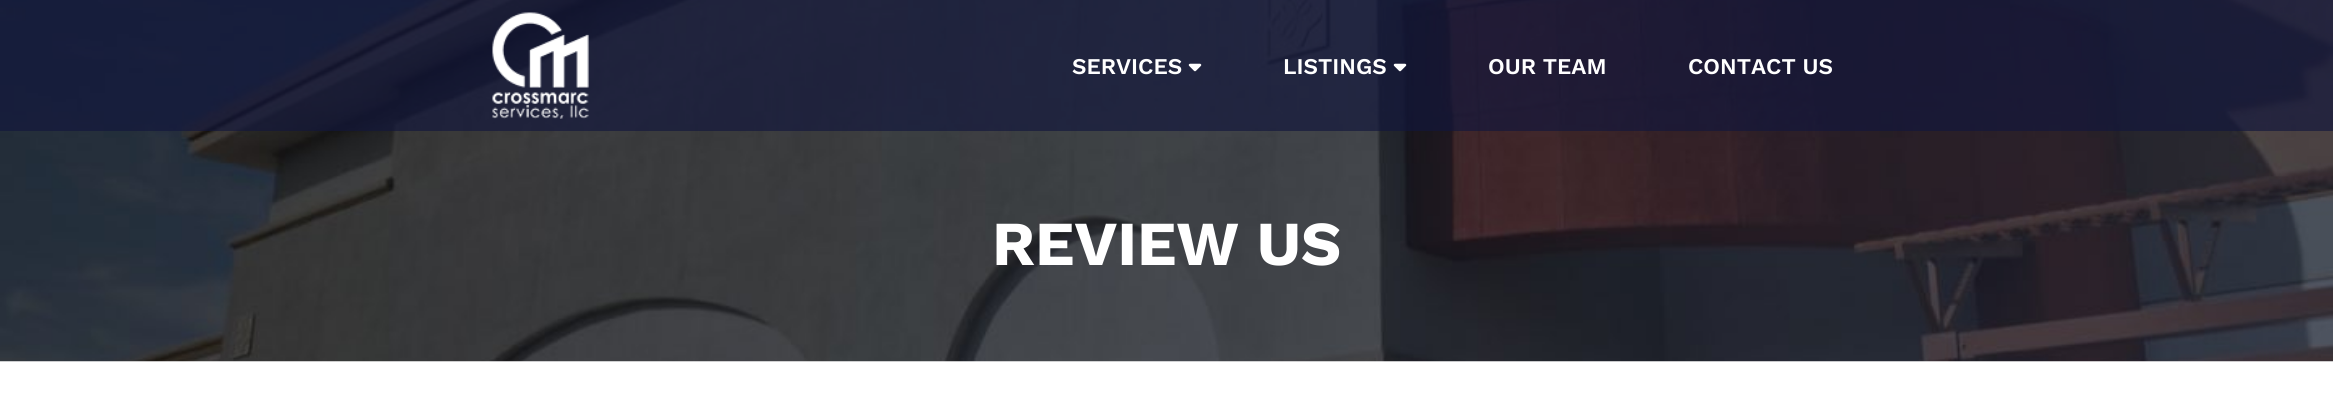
#include <cairo/cairo.h>
#include <math.h>
#include <stddef.h>

typedef struct { double x, y; const char *s; } line_t;
static cairo_t *cr;

static void rgb(unsigned color)
{
	cairo_set_source_rgb(cr, (color >> 16) / 255.0, (color >> 8 & 255) / 255.0, (color & 255) / 255.0);
}

static void image(const char *path, double x, double y, double w, double h)
{
	cairo_surface_t *image = cairo_image_surface_create_from_png(path);
	cairo_save(cr);
	cairo_set_source_surface(cr, image, x, y);
	cairo_rectangle(cr, x, y, w, h);
	cairo_fill(cr);
	cairo_restore(cr);
	cairo_surface_destroy(image);
}

int main(void) {
	cairo_surface_t *surface = cairo_image_surface_create(CAIRO_FORMAT_RGB24, 2333, 410);
	cr = cairo_create(surface);
	cairo_font_options_t *options = cairo_font_options_create();
	cairo_font_options_set_hint_metrics(options, CAIRO_HINT_METRICS_OFF);
	cairo_font_options_set_hint_style(options, CAIRO_HINT_STYLE_NONE);
	cairo_set_font_options(cr, options);
	cairo_set_miter_limit(cr, 4);
	rgb(0xffffff);
	cairo_paint(cr);
	image("img/4.png", 0, 0, 2333, 362);
	cairo_set_source_rgba(cr, 0.067, 0.086, 0.239, 0.65);
	cairo_rectangle(cr, 0, 0, 2333, 131);
	cairo_fill(cr);
	image("img/1.png", 492, 12, 97, 107);
	image("img/2.png", 1188, 63, 14, 9);
	image("img/3.png", 1393, 63, 14, 9);
	cairo_select_font_face(cr, "Work Sans SemiBold", CAIRO_FONT_SLANT_NORMAL, CAIRO_FONT_WEIGHT_NORMAL);
	cairo_set_font_size(cr, 22.5);
	rgb(0xffffff);
	{
		static const line_t items[] = {
			{1072, 74, "SERVICES"},
			{1283, 74, "LISTINGS"},
			{1488, 74, "OUR TEAM"},
			{1688, 74, "CONTACT US"},
		};
		for (size_t i = 0; i < sizeof items / sizeof *items; i++) {
			cairo_move_to(cr, items[i].x, items[i].y);
			cairo_show_text(cr, items[i].s);
		}
	}
	cairo_select_font_face(cr, "Work Sans", CAIRO_FONT_SLANT_NORMAL, CAIRO_FONT_WEIGHT_BOLD);
	cairo_set_font_size(cr, 62.5);
	cairo_move_to(cr, 992, 265);
	cairo_show_text(cr, "REVIEW US");
	cairo_surface_write_to_png(surface, "page.png");
	cairo_font_options_destroy(options);
	cairo_destroy(cr);
	cairo_surface_destroy(surface);
	return 0;
}
